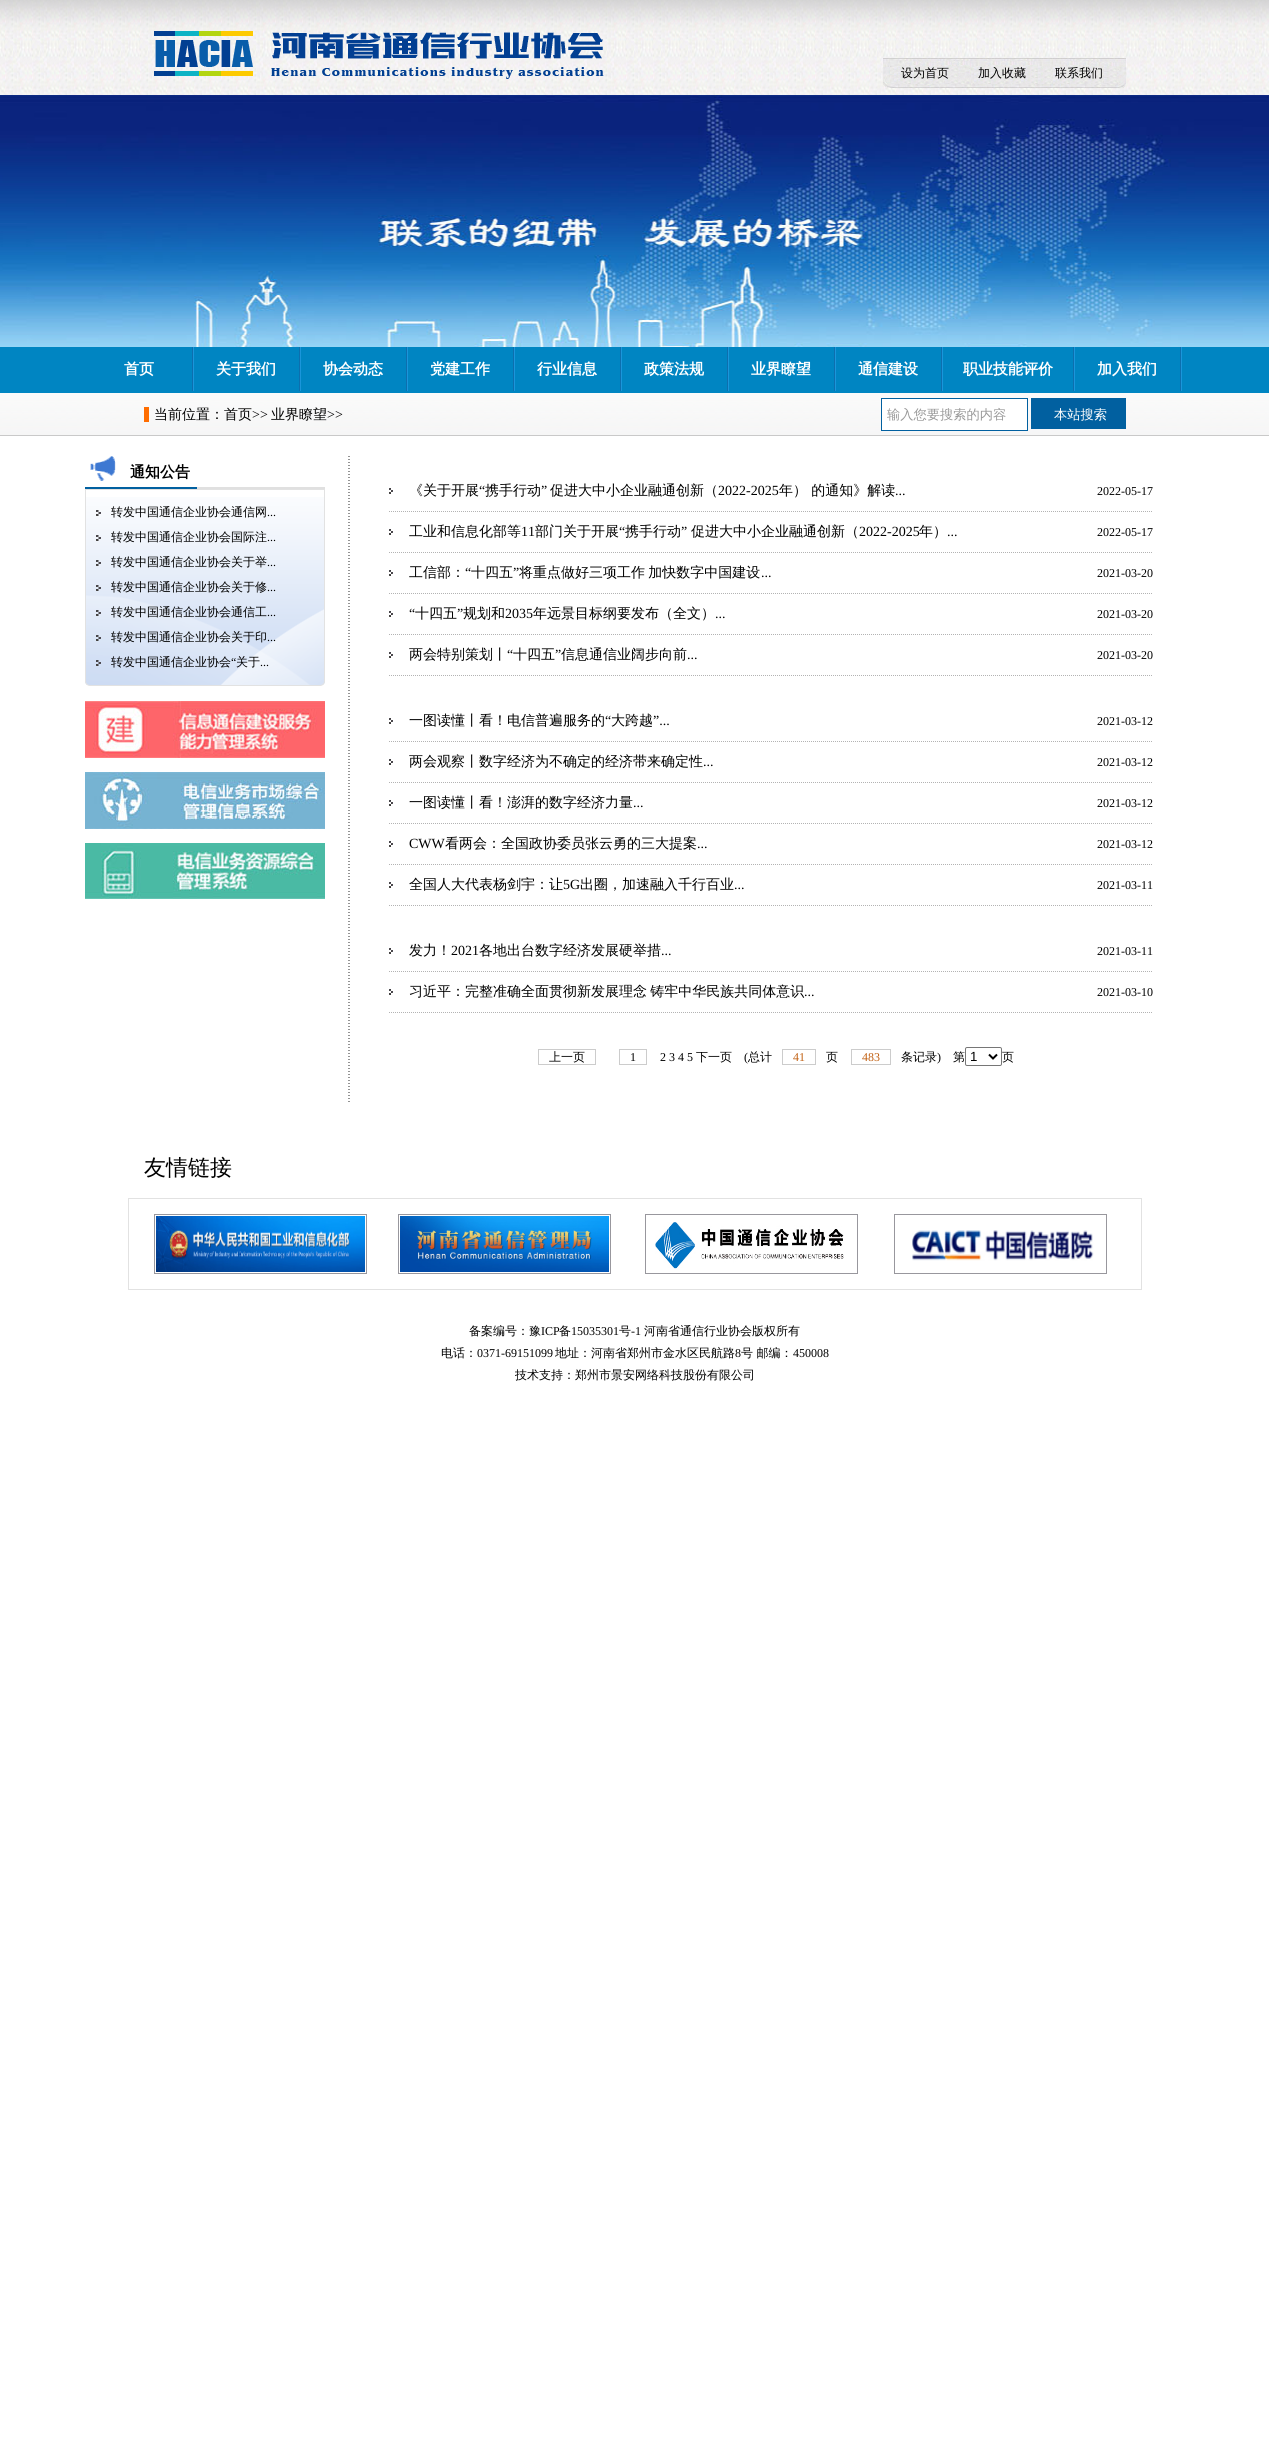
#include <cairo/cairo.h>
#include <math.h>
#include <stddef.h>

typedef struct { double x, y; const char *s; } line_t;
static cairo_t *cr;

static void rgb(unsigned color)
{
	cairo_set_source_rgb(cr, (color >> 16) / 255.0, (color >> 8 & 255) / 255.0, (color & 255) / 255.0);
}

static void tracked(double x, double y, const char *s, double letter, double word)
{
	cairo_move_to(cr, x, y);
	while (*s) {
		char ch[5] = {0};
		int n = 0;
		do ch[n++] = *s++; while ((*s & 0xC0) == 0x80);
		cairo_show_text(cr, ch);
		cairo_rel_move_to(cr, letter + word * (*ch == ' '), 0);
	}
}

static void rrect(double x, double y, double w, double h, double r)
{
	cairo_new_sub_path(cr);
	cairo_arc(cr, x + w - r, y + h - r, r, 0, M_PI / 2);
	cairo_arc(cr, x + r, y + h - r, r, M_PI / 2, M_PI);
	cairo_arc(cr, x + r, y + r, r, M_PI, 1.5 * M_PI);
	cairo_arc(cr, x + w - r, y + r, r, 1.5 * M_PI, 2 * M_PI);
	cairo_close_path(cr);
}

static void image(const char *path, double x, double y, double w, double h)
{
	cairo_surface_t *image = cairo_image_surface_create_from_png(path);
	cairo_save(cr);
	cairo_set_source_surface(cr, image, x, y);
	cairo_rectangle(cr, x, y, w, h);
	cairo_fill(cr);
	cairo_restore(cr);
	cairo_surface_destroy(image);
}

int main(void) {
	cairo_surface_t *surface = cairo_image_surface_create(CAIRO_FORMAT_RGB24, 1269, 2446);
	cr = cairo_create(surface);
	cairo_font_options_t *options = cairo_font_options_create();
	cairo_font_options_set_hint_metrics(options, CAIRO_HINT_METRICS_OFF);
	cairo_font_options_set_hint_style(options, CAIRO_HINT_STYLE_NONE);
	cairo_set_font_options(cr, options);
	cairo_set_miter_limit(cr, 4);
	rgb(0xffffff);
	cairo_paint(cr);
	image("img/1.png", 0, 0, 1269, 95);
	image("img/2.png", 154, 31, 450, 48);
	image("img/3.png", 883, 58, 243, 30);
	image("img/4.png", 0, 95, 1269, 252);
	rgb(0x0085c2);
	cairo_rectangle(cr, 0, 347, 1269, 46);
	cairo_fill(cr);
	image("img/5.png", 192, 347, 2, 44);
	image("img/5.png", 299, 347, 2, 44);
	image("img/5.png", 406, 347, 2, 44);
	image("img/5.png", 513, 347, 2, 44);
	image("img/5.png", 620, 347, 2, 44);
	image("img/5.png", 727, 347, 2, 44);
	image("img/5.png", 834, 347, 2, 44);
	image("img/5.png", 941, 347, 2, 44);
	image("img/5.png", 1073, 347, 2, 44);
	image("img/5.png", 1180, 347, 2, 44);
	image("img/6.png", 0, 393, 1269, 43);
	rgb(0xff6d00);
	cairo_rectangle(cr, 144, 407, 5, 15);
	cairo_fill(cr);
	rgb(0xffffff);
	cairo_rectangle(cr, 881.5, 398.5, 146, 32);
	cairo_fill_preserve(cr);
	rgb(0x0160a0);
	cairo_set_line_width(cr, 1);
	cairo_stroke(cr);
	cairo_rectangle(cr, 1031, 398, 95, 31);
	cairo_fill(cr);
	image("img/7.png", 85, 487, 240, 2);
	image("img/8.png", 90, 456, 26, 25);
	image("img/9.png", 85, 497, 240, 188);
	cairo_new_path(cr);
	cairo_move_to(cr, 85.5, 489.5);
	cairo_line_to(cr, 324.5, 489.5);
	cairo_line_to(cr, 324.5, 681);
	cairo_curve_to(cr, 324.5, 683.5, 322.5, 685.5, 320, 685.5);
	cairo_line_to(cr, 90, 685.5);
	cairo_curve_to(cr, 87.5, 685.5, 85.5, 683.5, 85.5, 681);
	cairo_close_path(cr);
	rgb(0xe2e2e2);
	cairo_stroke(cr);
	image("img/10.png", 96, 510, 5, 6);
	image("img/11.png", 96, 535, 5, 6);
	image("img/12.png", 96, 560, 5, 6);
	image("img/13.png", 96, 585, 5, 6);
	image("img/14.png", 96, 610, 5, 6);
	image("img/15.png", 96, 635, 5, 6);
	image("img/16.png", 96, 660, 5, 6);
	image("img/17.png", 85, 701, 240, 57);
	image("img/18.png", 85, 772, 240, 57);
	image("img/19.png", 85, 843, 240, 56);
	image("img/20.png", 348, 456, 2, 646);
	image("img/21.png", 389, 488, 4, 6);
	cairo_new_path(cr);
	cairo_move_to(cr, 389, 511.5);
	cairo_line_to(cr, 1153, 511.5);
	rgb(0xb3b3b3);
	cairo_set_dash(cr, (double[]){1, 1}, 2, 0);
	cairo_stroke(cr);
	image("img/21.png", 389, 529, 4, 6);
	cairo_new_path(cr);
	cairo_move_to(cr, 389, 552.5);
	cairo_line_to(cr, 1153, 552.5);
	cairo_stroke(cr);
	image("img/21.png", 389, 570, 4, 6);
	cairo_new_path(cr);
	cairo_move_to(cr, 389, 593.5);
	cairo_line_to(cr, 1153, 593.5);
	cairo_stroke(cr);
	image("img/21.png", 389, 611, 4, 6);
	cairo_new_path(cr);
	cairo_move_to(cr, 389, 634.5);
	cairo_line_to(cr, 1153, 634.5);
	cairo_stroke(cr);
	image("img/21.png", 389, 652, 4, 6);
	cairo_new_path(cr);
	cairo_move_to(cr, 389, 675.5);
	cairo_line_to(cr, 1153, 675.5);
	cairo_stroke(cr);
	image("img/21.png", 389, 718, 4, 6);
	cairo_new_path(cr);
	cairo_move_to(cr, 389, 741.5);
	cairo_line_to(cr, 1153, 741.5);
	cairo_stroke(cr);
	image("img/21.png", 389, 759, 4, 6);
	cairo_new_path(cr);
	cairo_move_to(cr, 389, 782.5);
	cairo_line_to(cr, 1153, 782.5);
	cairo_stroke(cr);
	image("img/21.png", 389, 800, 4, 6);
	cairo_new_path(cr);
	cairo_move_to(cr, 389, 823.5);
	cairo_line_to(cr, 1153, 823.5);
	cairo_stroke(cr);
	image("img/21.png", 389, 841, 4, 6);
	cairo_new_path(cr);
	cairo_move_to(cr, 389, 864.5);
	cairo_line_to(cr, 1153, 864.5);
	cairo_stroke(cr);
	image("img/21.png", 389, 882, 4, 6);
	cairo_new_path(cr);
	cairo_move_to(cr, 389, 905.5);
	cairo_line_to(cr, 1153, 905.5);
	cairo_stroke(cr);
	image("img/21.png", 389, 948, 4, 6);
	cairo_new_path(cr);
	cairo_move_to(cr, 389, 971.5);
	cairo_line_to(cr, 1153, 971.5);
	cairo_stroke(cr);
	image("img/21.png", 389, 989, 4, 6);
	cairo_new_path(cr);
	cairo_move_to(cr, 389, 1012.5);
	cairo_line_to(cr, 1153, 1012.5);
	cairo_stroke(cr);
	cairo_rectangle(cr, 538.5, 1049.5, 57, 15);
	rgb(0xcccccc);
	cairo_set_dash(cr, NULL, 0, 0);
	cairo_stroke(cr);
	cairo_rectangle(cr, 619.5, 1049.5, 27, 15);
	cairo_stroke(cr);
	cairo_rectangle(cr, 782.5, 1049.5, 33, 15);
	cairo_stroke(cr);
	cairo_rectangle(cr, 851.5, 1049.5, 39, 15);
	cairo_stroke(cr);
	rrect(965.5, 1047.5, 36, 18, 1.5);
	rgb(0x767676);
	cairo_stroke(cr);
	cairo_new_path(cr);
	cairo_move_to(cr, 989, 1054.5);
	cairo_line_to(cr, 993, 1058.5);
	cairo_line_to(cr, 997, 1054.5);
	rgb(0x000000);
	cairo_set_line_width(cr, 2);
	cairo_stroke(cr);
	cairo_rectangle(cr, 128.5, 1198.5, 1013, 91);
	rgb(0xe2e2e2);
	cairo_set_line_width(cr, 1);
	cairo_stroke(cr);
	cairo_rectangle(cr, 154.5, 1214.5, 212, 59);
	rgb(0x98979d);
	cairo_stroke(cr);
	image("img/22.png", 156, 1216, 209, 56);
	cairo_rectangle(cr, 398.5, 1214.5, 212, 59);
	cairo_stroke(cr);
	image("img/23.png", 400, 1216, 209, 56);
	cairo_rectangle(cr, 645.5, 1214.5, 212, 59);
	cairo_stroke(cr);
	image("img/24.png", 655, 1222, 189, 47);
	cairo_rectangle(cr, 894.5, 1214.5, 212, 59);
	cairo_stroke(cr);
	image("img/25.png", 912, 1230, 182, 31);
	cairo_select_font_face(cr, "WenQuanYi Zen Hei Medium", CAIRO_FONT_SLANT_NORMAL, CAIRO_FONT_WEIGHT_NORMAL);
	cairo_set_font_size(cr, 12);
	rgb(0x000000);
	{
		static const line_t items[] = {
			{901, 77, "设为首页"},
			{978, 77, "加入收藏"},
			{1055, 77, "联系我们"},
		};
		for (size_t i = 0; i < sizeof items / sizeof *items; i++) {
			cairo_move_to(cr, items[i].x, items[i].y);
			cairo_show_text(cr, items[i].s);
		}
	}
	cairo_select_font_face(cr, "WenQuanYi Zen Hei", CAIRO_FONT_SLANT_NORMAL, CAIRO_FONT_WEIGHT_BOLD);
	cairo_set_font_size(cr, 15);
	rgb(0xffffff);
	{
		static const line_t items[] = {
			{124, 374, "首页"},
			{216, 374, "关于我们"},
			{323, 374, "协会动态"},
			{430, 374, "党建工作"},
			{537, 374, "行业信息"},
			{644, 374, "政策法规"},
			{751, 374, "业界瞭望"},
			{858, 374, "通信建设"},
			{963, 374, "职业技能评价"},
			{1097, 374, "加入我们"},
		};
		for (size_t i = 0; i < sizeof items / sizeof *items; i++) {
			cairo_move_to(cr, items[i].x, items[i].y);
			cairo_show_text(cr, items[i].s);
		}
	}
	cairo_select_font_face(cr, "WenQuanYi Zen Hei Medium", CAIRO_FONT_SLANT_NORMAL, CAIRO_FONT_WEIGHT_NORMAL);
	cairo_set_font_size(cr, 14);
	rgb(0x000000);
	cairo_move_to(cr, 154, 419);
	cairo_show_text(cr, "当前位置：首页");
	cairo_select_font_face(cr, "Liberation Serif", CAIRO_FONT_SLANT_NORMAL, CAIRO_FONT_WEIGHT_NORMAL);
	cairo_move_to(cr, 252, 419);
	cairo_show_text(cr, ">>");
	cairo_select_font_face(cr, "WenQuanYi Zen Hei Medium", CAIRO_FONT_SLANT_NORMAL, CAIRO_FONT_WEIGHT_NORMAL);
	cairo_move_to(cr, 271, 419);
	cairo_show_text(cr, "业界瞭望");
	cairo_select_font_face(cr, "Liberation Serif", CAIRO_FONT_SLANT_NORMAL, CAIRO_FONT_WEIGHT_NORMAL);
	cairo_move_to(cr, 327, 419);
	cairo_show_text(cr, ">>");
	cairo_select_font_face(cr, "WenQuanYi Zen Hei Medium", CAIRO_FONT_SLANT_NORMAL, CAIRO_FONT_WEIGHT_NORMAL);
	cairo_set_font_size(cr, 13.25);
	rgb(0x999999);
	cairo_move_to(cr, 887, 419);
	cairo_show_text(cr, "输入您要搜索的内容");
	rgb(0xffffff);
	cairo_move_to(cr, 1054, 419);
	cairo_show_text(cr, "本站搜索");
	cairo_select_font_face(cr, "WenQuanYi Zen Hei", CAIRO_FONT_SLANT_NORMAL, CAIRO_FONT_WEIGHT_BOLD);
	cairo_set_font_size(cr, 15);
	rgb(0x000000);
	cairo_move_to(cr, 130, 477);
	cairo_show_text(cr, "通知公告");
	cairo_select_font_face(cr, "WenQuanYi Zen Hei Medium", CAIRO_FONT_SLANT_NORMAL, CAIRO_FONT_WEIGHT_NORMAL);
	cairo_set_font_size(cr, 12);
	cairo_move_to(cr, 111, 516);
	cairo_show_text(cr, "转发中国通信企业协会通信网");
	cairo_select_font_face(cr, "Liberation Serif", CAIRO_FONT_SLANT_NORMAL, CAIRO_FONT_WEIGHT_NORMAL);
	cairo_move_to(cr, 267, 516);
	cairo_show_text(cr, "...");
	cairo_select_font_face(cr, "WenQuanYi Zen Hei Medium", CAIRO_FONT_SLANT_NORMAL, CAIRO_FONT_WEIGHT_NORMAL);
	cairo_move_to(cr, 111, 541);
	cairo_show_text(cr, "转发中国通信企业协会国际注");
	cairo_select_font_face(cr, "Liberation Serif", CAIRO_FONT_SLANT_NORMAL, CAIRO_FONT_WEIGHT_NORMAL);
	cairo_move_to(cr, 267, 541);
	cairo_show_text(cr, "...");
	cairo_select_font_face(cr, "WenQuanYi Zen Hei Medium", CAIRO_FONT_SLANT_NORMAL, CAIRO_FONT_WEIGHT_NORMAL);
	cairo_move_to(cr, 111, 566);
	cairo_show_text(cr, "转发中国通信企业协会关于举");
	cairo_select_font_face(cr, "Liberation Serif", CAIRO_FONT_SLANT_NORMAL, CAIRO_FONT_WEIGHT_NORMAL);
	cairo_move_to(cr, 267, 566);
	cairo_show_text(cr, "...");
	cairo_select_font_face(cr, "WenQuanYi Zen Hei Medium", CAIRO_FONT_SLANT_NORMAL, CAIRO_FONT_WEIGHT_NORMAL);
	cairo_move_to(cr, 111, 591);
	cairo_show_text(cr, "转发中国通信企业协会关于修");
	cairo_select_font_face(cr, "Liberation Serif", CAIRO_FONT_SLANT_NORMAL, CAIRO_FONT_WEIGHT_NORMAL);
	cairo_move_to(cr, 267, 591);
	cairo_show_text(cr, "...");
	cairo_select_font_face(cr, "WenQuanYi Zen Hei Medium", CAIRO_FONT_SLANT_NORMAL, CAIRO_FONT_WEIGHT_NORMAL);
	cairo_move_to(cr, 111, 616);
	cairo_show_text(cr, "转发中国通信企业协会通信工");
	cairo_select_font_face(cr, "Liberation Serif", CAIRO_FONT_SLANT_NORMAL, CAIRO_FONT_WEIGHT_NORMAL);
	cairo_move_to(cr, 267, 616);
	cairo_show_text(cr, "...");
	cairo_select_font_face(cr, "WenQuanYi Zen Hei Medium", CAIRO_FONT_SLANT_NORMAL, CAIRO_FONT_WEIGHT_NORMAL);
	cairo_move_to(cr, 111, 641);
	cairo_show_text(cr, "转发中国通信企业协会关于印");
	cairo_select_font_face(cr, "Liberation Serif", CAIRO_FONT_SLANT_NORMAL, CAIRO_FONT_WEIGHT_NORMAL);
	cairo_move_to(cr, 267, 641);
	cairo_show_text(cr, "...");
	cairo_select_font_face(cr, "WenQuanYi Zen Hei Medium", CAIRO_FONT_SLANT_NORMAL, CAIRO_FONT_WEIGHT_NORMAL);
	cairo_move_to(cr, 111, 666);
	cairo_show_text(cr, "转发中国通信企业协会");
	cairo_select_font_face(cr, "Liberation Serif", CAIRO_FONT_SLANT_NORMAL, CAIRO_FONT_WEIGHT_NORMAL);
	cairo_move_to(cr, 231, 666);
	cairo_show_text(cr, "“");
	cairo_select_font_face(cr, "WenQuanYi Zen Hei Medium", CAIRO_FONT_SLANT_NORMAL, CAIRO_FONT_WEIGHT_NORMAL);
	cairo_move_to(cr, 236, 666);
	cairo_show_text(cr, "关于");
	cairo_select_font_face(cr, "Liberation Serif", CAIRO_FONT_SLANT_NORMAL, CAIRO_FONT_WEIGHT_NORMAL);
	cairo_move_to(cr, 260, 666);
	cairo_show_text(cr, "...");
	cairo_select_font_face(cr, "WenQuanYi Zen Hei Medium", CAIRO_FONT_SLANT_NORMAL, CAIRO_FONT_WEIGHT_NORMAL);
	cairo_set_font_size(cr, 14);
	cairo_move_to(cr, 409, 495);
	cairo_show_text(cr, "《关于开展");
	cairo_select_font_face(cr, "Liberation Serif", CAIRO_FONT_SLANT_NORMAL, CAIRO_FONT_WEIGHT_NORMAL);
	cairo_move_to(cr, 479, 495);
	cairo_show_text(cr, "“");
	cairo_select_font_face(cr, "WenQuanYi Zen Hei Medium", CAIRO_FONT_SLANT_NORMAL, CAIRO_FONT_WEIGHT_NORMAL);
	cairo_move_to(cr, 485, 495);
	cairo_show_text(cr, "携手行动");
	cairo_select_font_face(cr, "Liberation Serif", CAIRO_FONT_SLANT_NORMAL, CAIRO_FONT_WEIGHT_NORMAL);
	cairo_move_to(cr, 541, 495);
	cairo_show_text(cr, "”");
	cairo_select_font_face(cr, "WenQuanYi Zen Hei Medium", CAIRO_FONT_SLANT_NORMAL, CAIRO_FONT_WEIGHT_NORMAL);
	cairo_move_to(cr, 550, 495);
	cairo_show_text(cr, "促进大中小企业融通创新（");
	cairo_select_font_face(cr, "Liberation Serif", CAIRO_FONT_SLANT_NORMAL, CAIRO_FONT_WEIGHT_NORMAL);
	cairo_move_to(cr, 718, 495);
	cairo_show_text(cr, "2022-2025");
	cairo_select_font_face(cr, "WenQuanYi Zen Hei Medium", CAIRO_FONT_SLANT_NORMAL, CAIRO_FONT_WEIGHT_NORMAL);
	cairo_move_to(cr, 779, 495);
	cairo_show_text(cr, "年） 的通知》解读");
	cairo_select_font_face(cr, "Liberation Serif", CAIRO_FONT_SLANT_NORMAL, CAIRO_FONT_WEIGHT_NORMAL);
	cairo_move_to(cr, 895, 495);
	cairo_show_text(cr, "...");
	cairo_set_font_size(cr, 12);
	cairo_move_to(cr, 1097, 495);
	cairo_show_text(cr, "2022-05-17");
	cairo_select_font_face(cr, "WenQuanYi Zen Hei Medium", CAIRO_FONT_SLANT_NORMAL, CAIRO_FONT_WEIGHT_NORMAL);
	cairo_set_font_size(cr, 14);
	cairo_move_to(cr, 409, 536);
	cairo_show_text(cr, "工业和信息化部等");
	cairo_select_font_face(cr, "Liberation Serif", CAIRO_FONT_SLANT_NORMAL, CAIRO_FONT_WEIGHT_NORMAL);
	cairo_move_to(cr, 521, 536);
	cairo_show_text(cr, "11");
	cairo_select_font_face(cr, "WenQuanYi Zen Hei Medium", CAIRO_FONT_SLANT_NORMAL, CAIRO_FONT_WEIGHT_NORMAL);
	cairo_move_to(cr, 535, 536);
	cairo_show_text(cr, "部门关于开展");
	cairo_select_font_face(cr, "Liberation Serif", CAIRO_FONT_SLANT_NORMAL, CAIRO_FONT_WEIGHT_NORMAL);
	cairo_move_to(cr, 619, 536);
	cairo_show_text(cr, "“");
	cairo_select_font_face(cr, "WenQuanYi Zen Hei Medium", CAIRO_FONT_SLANT_NORMAL, CAIRO_FONT_WEIGHT_NORMAL);
	cairo_move_to(cr, 625, 536);
	cairo_show_text(cr, "携手行动");
	cairo_select_font_face(cr, "Liberation Serif", CAIRO_FONT_SLANT_NORMAL, CAIRO_FONT_WEIGHT_NORMAL);
	cairo_move_to(cr, 681, 536);
	cairo_show_text(cr, "”");
	cairo_select_font_face(cr, "WenQuanYi Zen Hei Medium", CAIRO_FONT_SLANT_NORMAL, CAIRO_FONT_WEIGHT_NORMAL);
	cairo_move_to(cr, 691, 536);
	cairo_show_text(cr, "促进大中小企业融通创新（");
	cairo_select_font_face(cr, "Liberation Serif", CAIRO_FONT_SLANT_NORMAL, CAIRO_FONT_WEIGHT_NORMAL);
	cairo_move_to(cr, 859, 536);
	cairo_show_text(cr, "2022-2025");
	cairo_select_font_face(cr, "WenQuanYi Zen Hei Medium", CAIRO_FONT_SLANT_NORMAL, CAIRO_FONT_WEIGHT_NORMAL);
	cairo_move_to(cr, 919, 536);
	cairo_show_text(cr, "年）");
	cairo_select_font_face(cr, "Liberation Serif", CAIRO_FONT_SLANT_NORMAL, CAIRO_FONT_WEIGHT_NORMAL);
	cairo_move_to(cr, 947, 536);
	cairo_show_text(cr, "...");
	cairo_set_font_size(cr, 12);
	cairo_move_to(cr, 1097, 536);
	cairo_show_text(cr, "2022-05-17");
	cairo_select_font_face(cr, "WenQuanYi Zen Hei Medium", CAIRO_FONT_SLANT_NORMAL, CAIRO_FONT_WEIGHT_NORMAL);
	cairo_set_font_size(cr, 14);
	cairo_move_to(cr, 409, 577);
	cairo_show_text(cr, "工信部：");
	cairo_select_font_face(cr, "Liberation Serif", CAIRO_FONT_SLANT_NORMAL, CAIRO_FONT_WEIGHT_NORMAL);
	cairo_move_to(cr, 465, 577);
	cairo_show_text(cr, "“");
	cairo_select_font_face(cr, "WenQuanYi Zen Hei Medium", CAIRO_FONT_SLANT_NORMAL, CAIRO_FONT_WEIGHT_NORMAL);
	cairo_move_to(cr, 471, 577);
	cairo_show_text(cr, "十四五");
	cairo_select_font_face(cr, "Liberation Serif", CAIRO_FONT_SLANT_NORMAL, CAIRO_FONT_WEIGHT_NORMAL);
	cairo_move_to(cr, 513, 577);
	cairo_show_text(cr, "”");
	cairo_select_font_face(cr, "WenQuanYi Zen Hei Medium", CAIRO_FONT_SLANT_NORMAL, CAIRO_FONT_WEIGHT_NORMAL);
	tracked(519, 577, "将重点做好三项工作 加快数字中国建设", 0, -1);
	cairo_select_font_face(cr, "Liberation Serif", CAIRO_FONT_SLANT_NORMAL, CAIRO_FONT_WEIGHT_NORMAL);
	cairo_move_to(cr, 761, 577);
	cairo_show_text(cr, "...");
	cairo_set_font_size(cr, 12);
	cairo_move_to(cr, 1097, 577);
	cairo_show_text(cr, "2021-03-20");
	cairo_set_font_size(cr, 14);
	cairo_move_to(cr, 409, 618);
	cairo_show_text(cr, "“");
	cairo_select_font_face(cr, "WenQuanYi Zen Hei Medium", CAIRO_FONT_SLANT_NORMAL, CAIRO_FONT_WEIGHT_NORMAL);
	cairo_move_to(cr, 415, 618);
	cairo_show_text(cr, "十四五");
	cairo_select_font_face(cr, "Liberation Serif", CAIRO_FONT_SLANT_NORMAL, CAIRO_FONT_WEIGHT_NORMAL);
	cairo_move_to(cr, 457, 618);
	cairo_show_text(cr, "”");
	cairo_select_font_face(cr, "WenQuanYi Zen Hei Medium", CAIRO_FONT_SLANT_NORMAL, CAIRO_FONT_WEIGHT_NORMAL);
	cairo_move_to(cr, 463, 618);
	cairo_show_text(cr, "规划和");
	cairo_select_font_face(cr, "Liberation Serif", CAIRO_FONT_SLANT_NORMAL, CAIRO_FONT_WEIGHT_NORMAL);
	cairo_move_to(cr, 505, 618);
	cairo_show_text(cr, "2035");
	cairo_select_font_face(cr, "WenQuanYi Zen Hei Medium", CAIRO_FONT_SLANT_NORMAL, CAIRO_FONT_WEIGHT_NORMAL);
	cairo_move_to(cr, 533, 618);
	cairo_show_text(cr, "年远景目标纲要发布（全文）");
	cairo_select_font_face(cr, "Liberation Serif", CAIRO_FONT_SLANT_NORMAL, CAIRO_FONT_WEIGHT_NORMAL);
	cairo_move_to(cr, 715, 618);
	cairo_show_text(cr, "...");
	cairo_set_font_size(cr, 12);
	cairo_move_to(cr, 1097, 618);
	cairo_show_text(cr, "2021-03-20");
	cairo_select_font_face(cr, "WenQuanYi Zen Hei Medium", CAIRO_FONT_SLANT_NORMAL, CAIRO_FONT_WEIGHT_NORMAL);
	cairo_set_font_size(cr, 14);
	cairo_move_to(cr, 409, 659);
	cairo_show_text(cr, "两会特别策划丨");
	cairo_select_font_face(cr, "Liberation Serif", CAIRO_FONT_SLANT_NORMAL, CAIRO_FONT_WEIGHT_NORMAL);
	cairo_move_to(cr, 507, 659);
	cairo_show_text(cr, "“");
	cairo_select_font_face(cr, "WenQuanYi Zen Hei Medium", CAIRO_FONT_SLANT_NORMAL, CAIRO_FONT_WEIGHT_NORMAL);
	cairo_move_to(cr, 513, 659);
	cairo_show_text(cr, "十四五");
	cairo_select_font_face(cr, "Liberation Serif", CAIRO_FONT_SLANT_NORMAL, CAIRO_FONT_WEIGHT_NORMAL);
	cairo_move_to(cr, 555, 659);
	cairo_show_text(cr, "”");
	cairo_select_font_face(cr, "WenQuanYi Zen Hei Medium", CAIRO_FONT_SLANT_NORMAL, CAIRO_FONT_WEIGHT_NORMAL);
	cairo_move_to(cr, 561, 659);
	cairo_show_text(cr, "信息通信业阔步向前");
	cairo_select_font_face(cr, "Liberation Serif", CAIRO_FONT_SLANT_NORMAL, CAIRO_FONT_WEIGHT_NORMAL);
	cairo_move_to(cr, 687, 659);
	cairo_show_text(cr, "...");
	cairo_set_font_size(cr, 12);
	cairo_move_to(cr, 1097, 659);
	cairo_show_text(cr, "2021-03-20");
	cairo_select_font_face(cr, "WenQuanYi Zen Hei Medium", CAIRO_FONT_SLANT_NORMAL, CAIRO_FONT_WEIGHT_NORMAL);
	cairo_set_font_size(cr, 14);
	cairo_move_to(cr, 409, 725);
	cairo_show_text(cr, "一图读懂丨看！电信普遍服务的");
	cairo_select_font_face(cr, "Liberation Serif", CAIRO_FONT_SLANT_NORMAL, CAIRO_FONT_WEIGHT_NORMAL);
	cairo_move_to(cr, 605, 725);
	cairo_show_text(cr, "“");
	cairo_select_font_face(cr, "WenQuanYi Zen Hei Medium", CAIRO_FONT_SLANT_NORMAL, CAIRO_FONT_WEIGHT_NORMAL);
	cairo_move_to(cr, 611, 725);
	cairo_show_text(cr, "大跨越");
	cairo_select_font_face(cr, "Liberation Serif", CAIRO_FONT_SLANT_NORMAL, CAIRO_FONT_WEIGHT_NORMAL);
	cairo_move_to(cr, 653, 725);
	cairo_show_text(cr, "”...");
	cairo_set_font_size(cr, 12);
	cairo_move_to(cr, 1097, 725);
	cairo_show_text(cr, "2021-03-12");
	cairo_select_font_face(cr, "WenQuanYi Zen Hei Medium", CAIRO_FONT_SLANT_NORMAL, CAIRO_FONT_WEIGHT_NORMAL);
	cairo_set_font_size(cr, 14);
	cairo_move_to(cr, 409, 766);
	cairo_show_text(cr, "两会观察丨数字经济为不确定的经济带来确定性");
	cairo_select_font_face(cr, "Liberation Serif", CAIRO_FONT_SLANT_NORMAL, CAIRO_FONT_WEIGHT_NORMAL);
	cairo_move_to(cr, 703, 766);
	cairo_show_text(cr, "...");
	cairo_set_font_size(cr, 12);
	cairo_move_to(cr, 1097, 766);
	cairo_show_text(cr, "2021-03-12");
	cairo_select_font_face(cr, "WenQuanYi Zen Hei Medium", CAIRO_FONT_SLANT_NORMAL, CAIRO_FONT_WEIGHT_NORMAL);
	cairo_set_font_size(cr, 14);
	cairo_move_to(cr, 409, 807);
	cairo_show_text(cr, "一图读懂丨看！澎湃的数字经济力量");
	cairo_select_font_face(cr, "Liberation Serif", CAIRO_FONT_SLANT_NORMAL, CAIRO_FONT_WEIGHT_NORMAL);
	cairo_move_to(cr, 633, 807);
	cairo_show_text(cr, "...");
	cairo_set_font_size(cr, 12);
	cairo_move_to(cr, 1097, 807);
	cairo_show_text(cr, "2021-03-12");
	cairo_set_font_size(cr, 14);
	cairo_move_to(cr, 409, 848);
	cairo_show_text(cr, "CWW");
	cairo_select_font_face(cr, "WenQuanYi Zen Hei Medium", CAIRO_FONT_SLANT_NORMAL, CAIRO_FONT_WEIGHT_NORMAL);
	cairo_move_to(cr, 445, 848);
	cairo_show_text(cr, "看两会：全国政协委员张云勇的三大提案");
	cairo_select_font_face(cr, "Liberation Serif", CAIRO_FONT_SLANT_NORMAL, CAIRO_FONT_WEIGHT_NORMAL);
	cairo_move_to(cr, 697, 848);
	cairo_show_text(cr, "...");
	cairo_set_font_size(cr, 12);
	cairo_move_to(cr, 1097, 848);
	cairo_show_text(cr, "2021-03-12");
	cairo_select_font_face(cr, "WenQuanYi Zen Hei Medium", CAIRO_FONT_SLANT_NORMAL, CAIRO_FONT_WEIGHT_NORMAL);
	cairo_set_font_size(cr, 14);
	cairo_move_to(cr, 409, 889);
	cairo_show_text(cr, "全国人大代表杨剑宇：让");
	cairo_select_font_face(cr, "Liberation Serif", CAIRO_FONT_SLANT_NORMAL, CAIRO_FONT_WEIGHT_NORMAL);
	cairo_move_to(cr, 563, 889);
	cairo_show_text(cr, "5G");
	cairo_select_font_face(cr, "WenQuanYi Zen Hei Medium", CAIRO_FONT_SLANT_NORMAL, CAIRO_FONT_WEIGHT_NORMAL);
	cairo_move_to(cr, 580, 889);
	cairo_show_text(cr, "出圈，加速融入千行百业");
	cairo_select_font_face(cr, "Liberation Serif", CAIRO_FONT_SLANT_NORMAL, CAIRO_FONT_WEIGHT_NORMAL);
	cairo_move_to(cr, 734, 889);
	cairo_show_text(cr, "...");
	cairo_set_font_size(cr, 12);
	cairo_move_to(cr, 1097, 889);
	cairo_show_text(cr, "2021-03-11");
	cairo_select_font_face(cr, "WenQuanYi Zen Hei Medium", CAIRO_FONT_SLANT_NORMAL, CAIRO_FONT_WEIGHT_NORMAL);
	cairo_set_font_size(cr, 14);
	cairo_move_to(cr, 409, 955);
	cairo_show_text(cr, "发力！");
	cairo_select_font_face(cr, "Liberation Serif", CAIRO_FONT_SLANT_NORMAL, CAIRO_FONT_WEIGHT_NORMAL);
	cairo_move_to(cr, 451, 955);
	cairo_show_text(cr, "2021");
	cairo_select_font_face(cr, "WenQuanYi Zen Hei Medium", CAIRO_FONT_SLANT_NORMAL, CAIRO_FONT_WEIGHT_NORMAL);
	cairo_move_to(cr, 479, 955);
	cairo_show_text(cr, "各地出台数字经济发展硬举措");
	cairo_select_font_face(cr, "Liberation Serif", CAIRO_FONT_SLANT_NORMAL, CAIRO_FONT_WEIGHT_NORMAL);
	cairo_move_to(cr, 661, 955);
	cairo_show_text(cr, "...");
	cairo_set_font_size(cr, 12);
	cairo_move_to(cr, 1097, 955);
	cairo_show_text(cr, "2021-03-11");
	cairo_select_font_face(cr, "WenQuanYi Zen Hei Medium", CAIRO_FONT_SLANT_NORMAL, CAIRO_FONT_WEIGHT_NORMAL);
	cairo_set_font_size(cr, 14);
	tracked(409, 996, "习近平：完整准确全面贯彻新发展理念 铸牢中华民族共同体意识", 0, -1);
	cairo_select_font_face(cr, "Liberation Serif", CAIRO_FONT_SLANT_NORMAL, CAIRO_FONT_WEIGHT_NORMAL);
	cairo_move_to(cr, 804, 996);
	cairo_show_text(cr, "...");
	cairo_set_font_size(cr, 12);
	cairo_move_to(cr, 1097, 996);
	cairo_show_text(cr, "2021-03-10");
	cairo_select_font_face(cr, "WenQuanYi Zen Hei Medium", CAIRO_FONT_SLANT_NORMAL, CAIRO_FONT_WEIGHT_NORMAL);
	cairo_move_to(cr, 549, 1061);
	cairo_show_text(cr, "上一页");
	cairo_select_font_face(cr, "Liberation Serif", CAIRO_FONT_SLANT_NORMAL, CAIRO_FONT_WEIGHT_NORMAL);
	cairo_move_to(cr, 630, 1061);
	cairo_show_text(cr, "1");
	cairo_move_to(cr, 660, 1061);
	cairo_show_text(cr, "2 3 4 5");
	cairo_select_font_face(cr, "WenQuanYi Zen Hei Medium", CAIRO_FONT_SLANT_NORMAL, CAIRO_FONT_WEIGHT_NORMAL);
	cairo_move_to(cr, 696, 1061);
	cairo_show_text(cr, "下一页");
	cairo_select_font_face(cr, "Liberation Serif", CAIRO_FONT_SLANT_NORMAL, CAIRO_FONT_WEIGHT_NORMAL);
	cairo_move_to(cr, 744, 1061);
	cairo_show_text(cr, "(");
	cairo_select_font_face(cr, "WenQuanYi Zen Hei Medium", CAIRO_FONT_SLANT_NORMAL, CAIRO_FONT_WEIGHT_NORMAL);
	cairo_move_to(cr, 748, 1061);
	cairo_show_text(cr, "总计");
	cairo_select_font_face(cr, "Liberation Serif", CAIRO_FONT_SLANT_NORMAL, CAIRO_FONT_WEIGHT_NORMAL);
	rgb(0xc16012);
	cairo_move_to(cr, 793, 1061);
	cairo_show_text(cr, "41");
	cairo_select_font_face(cr, "WenQuanYi Zen Hei Medium", CAIRO_FONT_SLANT_NORMAL, CAIRO_FONT_WEIGHT_NORMAL);
	rgb(0x000000);
	cairo_move_to(cr, 826, 1061);
	cairo_show_text(cr, "页");
	cairo_select_font_face(cr, "Liberation Serif", CAIRO_FONT_SLANT_NORMAL, CAIRO_FONT_WEIGHT_NORMAL);
	rgb(0xc16012);
	cairo_move_to(cr, 862, 1061);
	cairo_show_text(cr, "483");
	cairo_select_font_face(cr, "WenQuanYi Zen Hei Medium", CAIRO_FONT_SLANT_NORMAL, CAIRO_FONT_WEIGHT_NORMAL);
	rgb(0x000000);
	cairo_move_to(cr, 901, 1061);
	cairo_show_text(cr, "条记录");
	cairo_select_font_face(cr, "Liberation Serif", CAIRO_FONT_SLANT_NORMAL, CAIRO_FONT_WEIGHT_NORMAL);
	cairo_move_to(cr, 937, 1061);
	cairo_show_text(cr, ")");
	cairo_select_font_face(cr, "WenQuanYi Zen Hei Medium", CAIRO_FONT_SLANT_NORMAL, CAIRO_FONT_WEIGHT_NORMAL);
	cairo_move_to(cr, 953, 1061);
	cairo_show_text(cr, "第");
	cairo_select_font_face(cr, "Liberation Sans", CAIRO_FONT_SLANT_NORMAL, CAIRO_FONT_WEIGHT_NORMAL);
	cairo_set_font_size(cr, 13.25);
	cairo_move_to(cr, 970, 1061);
	cairo_show_text(cr, "1");
	cairo_select_font_face(cr, "WenQuanYi Zen Hei Medium", CAIRO_FONT_SLANT_NORMAL, CAIRO_FONT_WEIGHT_NORMAL);
	cairo_set_font_size(cr, 12);
	cairo_move_to(cr, 1002, 1061);
	cairo_show_text(cr, "页");
	cairo_set_font_size(cr, 22);
	cairo_move_to(cr, 144, 1175);
	cairo_show_text(cr, "友情链接");
	cairo_set_font_size(cr, 12);
	cairo_move_to(cr, 469, 1335);
	cairo_show_text(cr, "备案编号：豫");
	cairo_select_font_face(cr, "Liberation Serif", CAIRO_FONT_SLANT_NORMAL, CAIRO_FONT_WEIGHT_NORMAL);
	cairo_move_to(cr, 541, 1335);
	cairo_show_text(cr, "ICP");
	cairo_select_font_face(cr, "WenQuanYi Zen Hei Medium", CAIRO_FONT_SLANT_NORMAL, CAIRO_FONT_WEIGHT_NORMAL);
	cairo_move_to(cr, 559, 1335);
	cairo_show_text(cr, "备");
	cairo_select_font_face(cr, "Liberation Serif", CAIRO_FONT_SLANT_NORMAL, CAIRO_FONT_WEIGHT_NORMAL);
	cairo_move_to(cr, 571, 1335);
	cairo_show_text(cr, "15035301");
	cairo_select_font_face(cr, "WenQuanYi Zen Hei Medium", CAIRO_FONT_SLANT_NORMAL, CAIRO_FONT_WEIGHT_NORMAL);
	cairo_move_to(cr, 619, 1335);
	cairo_show_text(cr, "号");
	cairo_select_font_face(cr, "Liberation Serif", CAIRO_FONT_SLANT_NORMAL, CAIRO_FONT_WEIGHT_NORMAL);
	cairo_move_to(cr, 631, 1335);
	cairo_show_text(cr, "-1");
	cairo_select_font_face(cr, "WenQuanYi Zen Hei Medium", CAIRO_FONT_SLANT_NORMAL, CAIRO_FONT_WEIGHT_NORMAL);
	cairo_move_to(cr, 644, 1335);
	cairo_show_text(cr, "河南省通信行业协会版权所有");
	cairo_move_to(cr, 441, 1357);
	cairo_show_text(cr, "电话：");
	cairo_select_font_face(cr, "Liberation Serif", CAIRO_FONT_SLANT_NORMAL, CAIRO_FONT_WEIGHT_NORMAL);
	cairo_move_to(cr, 477, 1357);
	cairo_show_text(cr, "0371-69151099");
	cairo_select_font_face(cr, "WenQuanYi Zen Hei Medium", CAIRO_FONT_SLANT_NORMAL, CAIRO_FONT_WEIGHT_NORMAL);
	cairo_move_to(cr, 555, 1357);
	cairo_show_text(cr, "地址：河南省郑州市金水区民航路");
	cairo_select_font_face(cr, "Liberation Serif", CAIRO_FONT_SLANT_NORMAL, CAIRO_FONT_WEIGHT_NORMAL);
	cairo_move_to(cr, 735, 1357);
	cairo_show_text(cr, "8");
	cairo_select_font_face(cr, "WenQuanYi Zen Hei Medium", CAIRO_FONT_SLANT_NORMAL, CAIRO_FONT_WEIGHT_NORMAL);
	cairo_move_to(cr, 741, 1357);
	cairo_show_text(cr, "号 邮编：");
	cairo_select_font_face(cr, "Liberation Serif", CAIRO_FONT_SLANT_NORMAL, CAIRO_FONT_WEIGHT_NORMAL);
	cairo_move_to(cr, 793, 1357);
	cairo_show_text(cr, "450008");
	cairo_select_font_face(cr, "WenQuanYi Zen Hei Medium", CAIRO_FONT_SLANT_NORMAL, CAIRO_FONT_WEIGHT_NORMAL);
	cairo_move_to(cr, 515, 1379);
	cairo_show_text(cr, "技术支持：郑州市景安网络科技股份有限公司");
	cairo_surface_write_to_png(surface, "page.png");
	cairo_font_options_destroy(options);
	cairo_destroy(cr);
	cairo_surface_destroy(surface);
	return 0;
}
